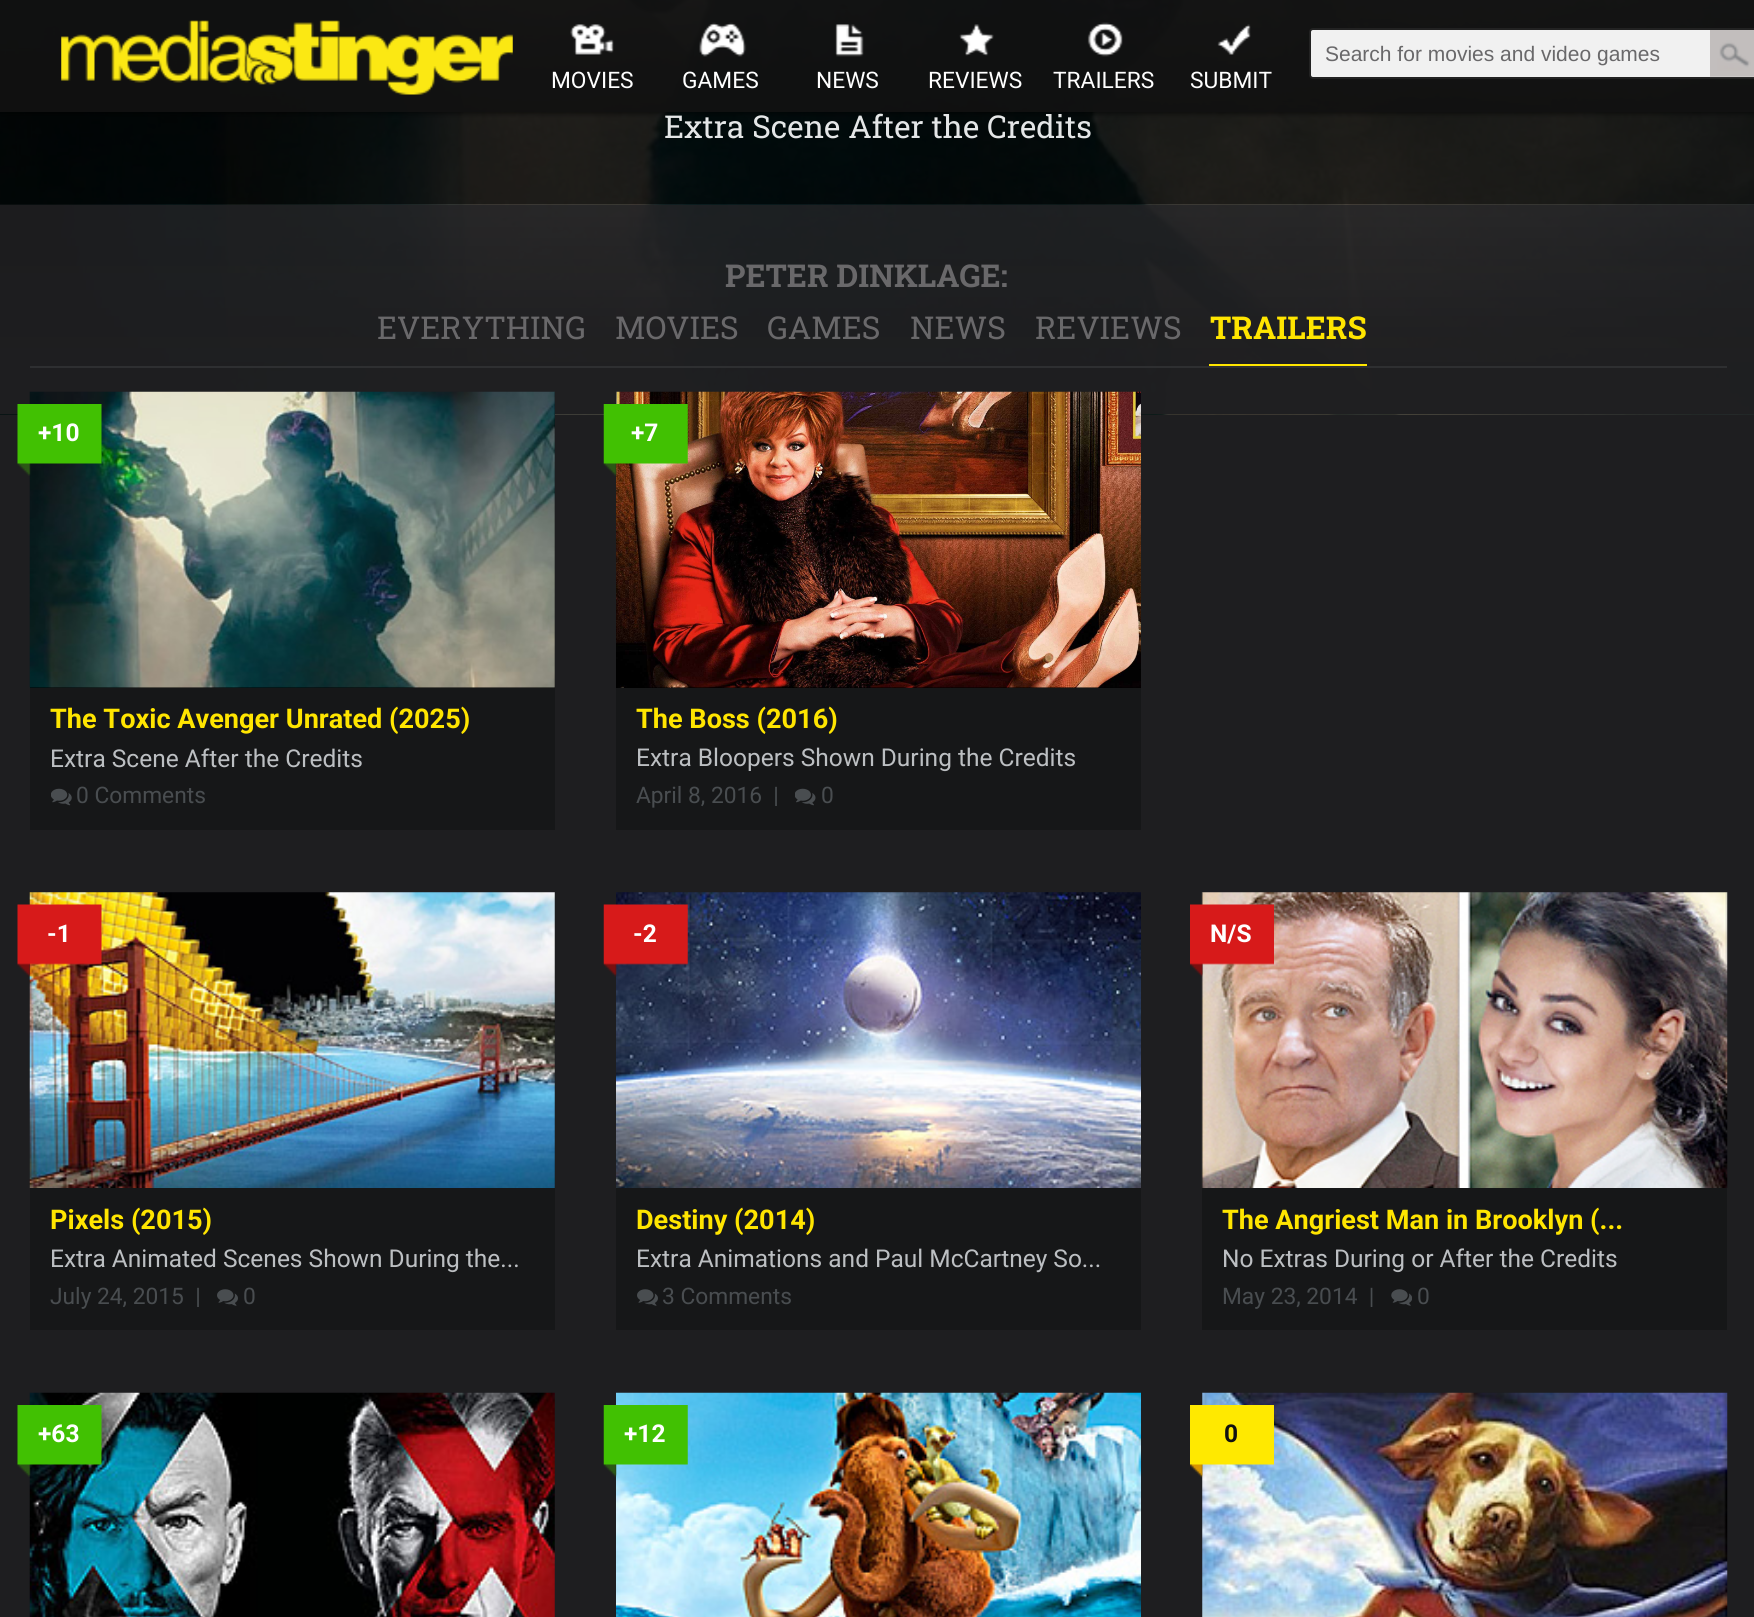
#include <cairo/cairo.h>
#include <math.h>
#include <stddef.h>

typedef struct { double x, y; const char *s; } line_t;
typedef struct { double x, y, w, h; unsigned color; } box_t;
static cairo_t *cr;

static void rgb(unsigned color)
{
	cairo_set_source_rgb(cr, (color >> 16) / 255.0, (color >> 8 & 255) / 255.0, (color & 255) / 255.0);
}

static void rrect(double x, double y, double w, double h, double r)
{
	cairo_new_sub_path(cr);
	cairo_arc(cr, x + w - r, y + h - r, r, 0, M_PI / 2);
	cairo_arc(cr, x + r, y + h - r, r, M_PI / 2, M_PI);
	cairo_arc(cr, x + r, y + r, r, M_PI, 1.5 * M_PI);
	cairo_arc(cr, x + w - r, y + r, r, 1.5 * M_PI, 2 * M_PI);
	cairo_close_path(cr);
}

static void soft_shadow(double x, double y, double w, double h, double r, double blur, double alpha)
{
	cairo_push_group_with_content(cr, CAIRO_CONTENT_ALPHA);
	cairo_set_operator(cr, CAIRO_OPERATOR_SOURCE);
	for (int i = 15; i >= -15 && fmin(w, h) + blur * i / 3 > 0; i -= 2) {
		double e = blur * i / 6;
		cairo_set_source_rgba(cr, 0, 0, 0, alpha * erfc((i - 1) / 8.5) / 2);
		rrect(x - e, y - e, w + 2 * e, h + 2 * e, fmax(0, fmin(r + e + blur * .6, fmin(w, h) / 2 + e)));
		cairo_fill(cr);
	}
	cairo_pattern_t *soft = cairo_pop_group(cr);
	cairo_mask(cr, soft);
	cairo_pattern_destroy(soft);
}

static void image(const char *path, double x, double y, double w, double h)
{
	cairo_surface_t *image = cairo_image_surface_create_from_png(path);
	cairo_save(cr);
	cairo_set_source_surface(cr, image, x, y);
	cairo_rectangle(cr, x, y, w, h);
	cairo_fill(cr);
	cairo_restore(cr);
	cairo_surface_destroy(image);
}

int main(void) {
	cairo_surface_t *surface = cairo_image_surface_create(CAIRO_FORMAT_RGB24, 1754, 1617);
	cr = cairo_create(surface);
	cairo_font_options_t *options = cairo_font_options_create();
	cairo_font_options_set_hint_metrics(options, CAIRO_HINT_METRICS_OFF);
	cairo_font_options_set_hint_style(options, CAIRO_HINT_STYLE_NONE);
	cairo_set_font_options(cr, options);
	cairo_set_miter_limit(cr, 4);
	rgb(0x1e1e20);
	cairo_paint(cr);
	rgb(0x000000);
	cairo_rectangle(cr, 0, 414, 1754, 1);
	cairo_fill(cr);
	image("img/9.png", 0, 0, 1754, 415);
	image("img/11.png", 0, 204, 166, 211);
	image("img/12.png", 0, 204, 1754, 211);
	image("img/10.png", 0, 0, 1754, 205);
	cairo_save(cr);
	cairo_rectangle(cr, 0, 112, 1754, 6);
	cairo_clip(cr);
	rgb(0x000000);
	soft_shadow(0, 2, 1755, 112, 0, 2.5, 0.55);
	cairo_restore(cr);
	cairo_set_source_rgba(cr, 0.067, 0.067, 0.067, 0.95);
	cairo_rectangle(cr, 0, 0, 1754, 112);
	cairo_fill(cr);
	image("img/1.png", 61, 20, 452, 75);
	rgb(0xf1f1f1);
	rrect(1310, 29, 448, 49, 3);
	cairo_fill_preserve(cr);
	rgb(0x222222);
	cairo_stroke(cr);
	image("img/2.png", 1710, 30, 44, 48);
	image("img/3.png", 570, 24, 44, 32);
	image("img/4.png", 699, 22, 48, 35);
	image("img/5.png", 835, 24, 29, 33);
	image("img/6.png", 959, 24, 35, 32);
	image("img/7.png", 1087, 22, 36, 35);
	image("img/8.png", 1217, 24, 34, 31);
	{
		static const box_t items[] = {
			{30, 366, 1697, 2, 0x2e2f31},
			{1209, 364, 158, 2, 0xffe500},
			{30, 688, 525, 142, 0x161718},
			{30, 392, 525, 296, 0x000000},
		};
		for (size_t i = 0; i < sizeof items / sizeof *items; i++) {
			rgb(items[i].color);
			cairo_rectangle(cr, items[i].x, items[i].y, items[i].w, items[i].h);
			cairo_fill(cr);
		}
	}
	image("img/13.png", 29, 391, 526, 297);
	image("img/14.png", 17, 404, 85, 72);
	image("img/15.png", 51, 788, 21, 18);
	rgb(0x161718);
	cairo_rectangle(cr, 616, 688, 525, 142);
	cairo_fill(cr);
	rgb(0x000000);
	cairo_rectangle(cr, 616, 687, 525, 1);
	cairo_fill(cr);
	image("img/16.png", 616, 391, 525, 297);
	image("img/17.png", 603, 404, 85, 72);
	image("img/18.png", 795, 788, 21, 18);
	rgb(0x161718);
	cairo_rectangle(cr, 30, 893, 525, 437);
	cairo_fill(cr);
	image("img/19.png", 29, 892, 526, 296);
	image("img/20.png", 17, 904, 85, 73);
	image("img/21.png", 217, 1289, 21, 17);
	cairo_rectangle(cr, 616, 1188, 525, 142);
	cairo_fill(cr);
	image("img/22.png", 616, 892, 525, 296);
	image("img/23.png", 603, 904, 85, 73);
	image("img/21.png", 637, 1289, 21, 17);
	cairo_rectangle(cr, 1202, 1188, 525, 142);
	cairo_fill(cr);
	rgb(0x000000);
	cairo_rectangle(cr, 1202, 893, 1, 295);
	cairo_fill(cr);
	image("img/24.png", 1201, 892, 527, 296);
	image("img/25.png", 1190, 904, 84, 73);
	image("img/26.png", 1391, 1289, 21, 17);
	image("img/27.png", 29, 1392, 526, 225);
	image("img/28.png", 17, 1405, 85, 72);
	image("img/29.png", 616, 1392, 525, 225);
	image("img/30.png", 603, 1405, 85, 72);
	image("img/31.png", 1202, 1392, 526, 225);
	image("img/32.png", 1190, 1405, 84, 73);
	cairo_select_font_face(cr, "Liberation Sans", CAIRO_FONT_SLANT_NORMAL, CAIRO_FONT_WEIGHT_NORMAL);
	cairo_set_font_size(cr, 21);
	rgb(0x69686a);
	cairo_move_to(cr, 1325, 61);
	cairo_show_text(cr, "Search for movies and video games");
	cairo_select_font_face(cr, "Roboto", CAIRO_FONT_SLANT_NORMAL, CAIRO_FONT_WEIGHT_NORMAL);
	cairo_set_font_size(cr, 22.75);
	rgb(0xffffff);
	{
		static const line_t items[] = {
			{551, 88, "MOVIES"},
			{682, 88, "GAMES"},
			{816, 88, "NEWS"},
			{928, 88, "REVIEWS"},
			{1053, 88, "TRAILERS"},
			{1190, 88, "SUBMIT"},
		};
		for (size_t i = 0; i < sizeof items / sizeof *items; i++) {
			cairo_move_to(cr, items[i].x, items[i].y);
			cairo_show_text(cr, items[i].s);
		}
	}
	cairo_select_font_face(cr, "Roboto Slab", CAIRO_FONT_SLANT_NORMAL, CAIRO_FONT_WEIGHT_NORMAL);
	cairo_set_font_size(cr, 31.5);
	rgb(0xe4e6e7);
	cairo_move_to(cr, 664, 138);
	cairo_show_text(cr, "Extra Scene After the Credits");
	cairo_select_font_face(cr, "Roboto Slab", CAIRO_FONT_SLANT_NORMAL, CAIRO_FONT_WEIGHT_BOLD);
	rgb(0x69686a);
	cairo_move_to(cr, 725, 287);
	cairo_show_text(cr, "PETER DINKLAGE:");
	cairo_select_font_face(cr, "Roboto Slab", CAIRO_FONT_SLANT_NORMAL, CAIRO_FONT_WEIGHT_NORMAL);
	{
		static const line_t items[] = {
			{377, 339, "EVERYTHING"},
			{615, 339, "MOVIES"},
			{767, 339, "GAMES"},
			{910, 339, "NEWS"},
			{1035, 339, "REVIEWS"},
		};
		for (size_t i = 0; i < sizeof items / sizeof *items; i++) {
			cairo_move_to(cr, items[i].x, items[i].y);
			cairo_show_text(cr, items[i].s);
		}
	}
	cairo_select_font_face(cr, "Roboto Slab", CAIRO_FONT_SLANT_NORMAL, CAIRO_FONT_WEIGHT_BOLD);
	rgb(0xffe500);
	cairo_move_to(cr, 1210, 339);
	cairo_show_text(cr, "TRAILERS");
	cairo_select_font_face(cr, "Roboto", CAIRO_FONT_SLANT_NORMAL, CAIRO_FONT_WEIGHT_BOLD);
	cairo_set_font_size(cr, 24.5);
	rgb(0xffffff);
	cairo_move_to(cr, 38, 441);
	cairo_show_text(cr, "+10");
	cairo_set_font_size(cr, 27.1);
	rgb(0xffe500);
	cairo_move_to(cr, 50, 728);
	cairo_show_text(cr, "The Toxic Avenger Unrated (2025)");
	cairo_select_font_face(cr, "Roboto", CAIRO_FONT_SLANT_NORMAL, CAIRO_FONT_WEIGHT_NORMAL);
	cairo_set_font_size(cr, 24.5);
	rgb(0xbcbfc2);
	cairo_move_to(cr, 50, 767);
	cairo_show_text(cr, "Extra Scene After the Credits");
	cairo_set_font_size(cr, 22.75);
	rgb(0x494d50);
	cairo_move_to(cr, 76, 803);
	cairo_show_text(cr, "0 Comments");
	cairo_select_font_face(cr, "Roboto", CAIRO_FONT_SLANT_NORMAL, CAIRO_FONT_WEIGHT_BOLD);
	cairo_set_font_size(cr, 24.5);
	rgb(0xffffff);
	cairo_move_to(cr, 631, 441);
	cairo_show_text(cr, "+7");
	cairo_set_font_size(cr, 27.1);
	rgb(0xffe500);
	cairo_move_to(cr, 636, 728);
	cairo_show_text(cr, "The Boss (2016)");
	cairo_select_font_face(cr, "Roboto", CAIRO_FONT_SLANT_NORMAL, CAIRO_FONT_WEIGHT_NORMAL);
	cairo_set_font_size(cr, 24.5);
	rgb(0xbcbfc2);
	cairo_move_to(cr, 636, 766);
	cairo_show_text(cr, "Extra Bloopers Shown During the Credits");
	cairo_set_font_size(cr, 22.75);
	rgb(0x494d50);
	cairo_move_to(cr, 636, 803);
	cairo_show_text(cr, "April 8, 2016  |");
	cairo_move_to(cr, 821, 803);
	cairo_show_text(cr, "0");
	cairo_select_font_face(cr, "Roboto", CAIRO_FONT_SLANT_NORMAL, CAIRO_FONT_WEIGHT_BOLD);
	cairo_set_font_size(cr, 24.5);
	rgb(0xffffff);
	cairo_move_to(cr, 47, 942);
	cairo_show_text(cr, "-1");
	cairo_set_font_size(cr, 27.1);
	rgb(0xffe500);
	cairo_move_to(cr, 50, 1229);
	cairo_show_text(cr, "Pixels (2015)");
	cairo_select_font_face(cr, "Roboto", CAIRO_FONT_SLANT_NORMAL, CAIRO_FONT_WEIGHT_NORMAL);
	cairo_set_font_size(cr, 24.5);
	rgb(0xbcbfc2);
	cairo_move_to(cr, 50, 1267);
	cairo_show_text(cr, "Extra Animated Scenes Shown During the...");
	cairo_set_font_size(cr, 22.75);
	rgb(0x494d50);
	cairo_move_to(cr, 50, 1304);
	cairo_show_text(cr, "July 24, 2015  |");
	cairo_move_to(cr, 243, 1304);
	cairo_show_text(cr, "0");
	cairo_select_font_face(cr, "Roboto", CAIRO_FONT_SLANT_NORMAL, CAIRO_FONT_WEIGHT_BOLD);
	cairo_set_font_size(cr, 24.5);
	rgb(0xffffff);
	cairo_move_to(cr, 633, 942);
	cairo_show_text(cr, "-2");
	cairo_set_font_size(cr, 27.1);
	rgb(0xffe500);
	cairo_move_to(cr, 636, 1229);
	cairo_show_text(cr, "Destiny (2014)");
	cairo_select_font_face(cr, "Roboto", CAIRO_FONT_SLANT_NORMAL, CAIRO_FONT_WEIGHT_NORMAL);
	cairo_set_font_size(cr, 24.5);
	rgb(0xbcbfc2);
	cairo_move_to(cr, 636, 1267);
	cairo_show_text(cr, "Extra Animations and Paul McCartney So...");
	cairo_set_font_size(cr, 22.75);
	rgb(0x494d50);
	cairo_move_to(cr, 662, 1304);
	cairo_show_text(cr, "3 Comments");
	cairo_select_font_face(cr, "Roboto", CAIRO_FONT_SLANT_NORMAL, CAIRO_FONT_WEIGHT_BOLD);
	cairo_set_font_size(cr, 24.5);
	rgb(0xffffff);
	cairo_move_to(cr, 1210, 942);
	cairo_show_text(cr, "N/S");
	cairo_set_font_size(cr, 27.1);
	rgb(0xffe500);
	cairo_move_to(cr, 1222, 1229);
	cairo_show_text(cr, "The Angriest Man in Brooklyn (...");
	cairo_select_font_face(cr, "Roboto", CAIRO_FONT_SLANT_NORMAL, CAIRO_FONT_WEIGHT_NORMAL);
	cairo_set_font_size(cr, 24.5);
	rgb(0xbcbfc2);
	cairo_move_to(cr, 1222, 1267);
	cairo_show_text(cr, "No Extras During or After the Credits");
	cairo_set_font_size(cr, 22.75);
	rgb(0x494d50);
	cairo_move_to(cr, 1222, 1304);
	cairo_show_text(cr, "May 23, 2014  |");
	cairo_move_to(cr, 1417, 1304);
	cairo_show_text(cr, "0");
	cairo_select_font_face(cr, "Roboto", CAIRO_FONT_SLANT_NORMAL, CAIRO_FONT_WEIGHT_BOLD);
	cairo_set_font_size(cr, 24.5);
	rgb(0xffffff);
	cairo_move_to(cr, 38, 1442);
	cairo_show_text(cr, "+63");
	cairo_move_to(cr, 624, 1442);
	cairo_show_text(cr, "+12");
	rgb(0x111111);
	cairo_move_to(cr, 1224, 1442);
	cairo_show_text(cr, "0");
	cairo_surface_write_to_png(surface, "page.png");
	cairo_font_options_destroy(options);
	cairo_destroy(cr);
	cairo_surface_destroy(surface);
	return 0;
}
